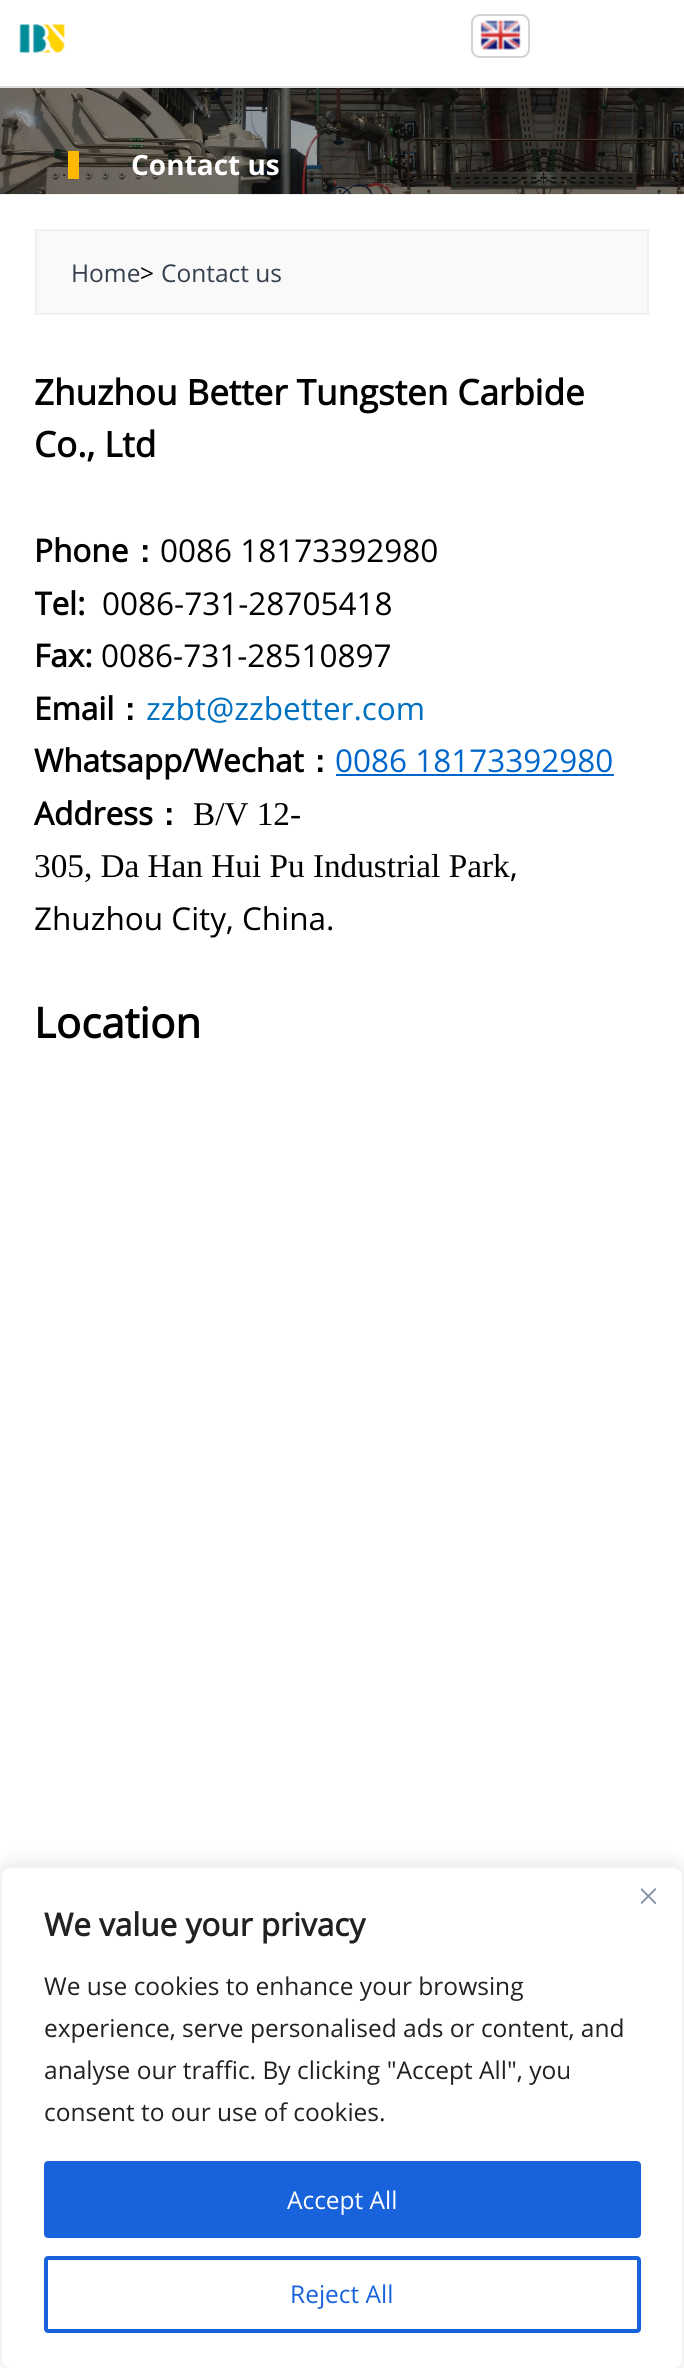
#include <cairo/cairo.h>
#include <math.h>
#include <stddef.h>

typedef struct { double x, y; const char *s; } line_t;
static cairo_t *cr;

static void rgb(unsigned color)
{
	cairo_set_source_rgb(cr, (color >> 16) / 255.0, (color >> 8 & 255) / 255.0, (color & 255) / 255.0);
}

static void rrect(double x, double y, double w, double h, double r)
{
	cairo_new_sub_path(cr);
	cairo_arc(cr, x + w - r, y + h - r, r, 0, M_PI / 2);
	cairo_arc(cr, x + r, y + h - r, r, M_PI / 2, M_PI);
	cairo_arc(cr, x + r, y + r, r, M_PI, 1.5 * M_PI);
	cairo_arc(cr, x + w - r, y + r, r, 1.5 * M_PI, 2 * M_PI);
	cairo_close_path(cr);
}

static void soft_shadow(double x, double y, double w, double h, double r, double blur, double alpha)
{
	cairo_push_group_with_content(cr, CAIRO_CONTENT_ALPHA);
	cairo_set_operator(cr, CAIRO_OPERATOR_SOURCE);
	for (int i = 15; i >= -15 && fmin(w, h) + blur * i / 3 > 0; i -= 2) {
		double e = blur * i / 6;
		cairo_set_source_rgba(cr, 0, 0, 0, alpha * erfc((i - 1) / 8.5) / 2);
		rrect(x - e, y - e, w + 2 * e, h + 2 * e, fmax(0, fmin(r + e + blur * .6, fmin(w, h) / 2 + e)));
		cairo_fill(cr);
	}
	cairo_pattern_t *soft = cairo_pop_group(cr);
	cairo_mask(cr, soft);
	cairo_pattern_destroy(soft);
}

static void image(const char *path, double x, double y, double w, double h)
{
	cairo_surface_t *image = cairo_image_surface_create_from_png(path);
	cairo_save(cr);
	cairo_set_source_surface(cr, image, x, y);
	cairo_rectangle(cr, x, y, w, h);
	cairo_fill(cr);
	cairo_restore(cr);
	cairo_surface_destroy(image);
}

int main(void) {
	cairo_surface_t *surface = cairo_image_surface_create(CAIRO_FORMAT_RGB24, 684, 2368);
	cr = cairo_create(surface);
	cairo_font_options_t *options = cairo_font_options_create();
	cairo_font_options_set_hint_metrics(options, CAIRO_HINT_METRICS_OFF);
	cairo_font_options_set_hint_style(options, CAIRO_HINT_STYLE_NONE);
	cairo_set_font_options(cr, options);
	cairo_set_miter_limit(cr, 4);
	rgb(0xffffff);
	cairo_paint(cr);
	rgb(0xdddddd);
	cairo_rectangle(cr, 0, 86, 684, 2);
	cairo_fill(cr);
	image("img/1.png", 19, 24, 46, 29);
	rrect(472, 15, 57, 42, 8);
	rgb(0xd3d3d3);
	cairo_stroke(cr);
	image("img/2.png", 480, 20, 41, 30);
	image("img/3.png", 0, 88, 684, 107);
	rgb(0xfeb900);
	cairo_rectangle(cr, 68, 151, 11, 28);
	cairo_fill(cr);
	rgb(0xf9f9f9);
	cairo_rectangle(cr, 36, 230, 612, 84);
	cairo_fill_preserve(cr);
	rgb(0xefefef);
	cairo_stroke(cr);
	rgb(0x0066cc);
	cairo_rectangle(cr, 336, 774, 278, 2);
	cairo_fill(cr);
	rgb(0xacabab);
	soft_shadow(0, 1864, 684, 504, 11, 9, 0.3);
	rgb(0xffffff);
	rrect(1, 1867, 682, 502, 10);
	cairo_fill_preserve(cr);
	rgb(0xf4f4f4);
	cairo_stroke(cr);
	image("img/4.png", 641, 1888, 15, 16);
	rgb(0x1863dc);
	rrect(46, 2163, 593, 73, 2);
	cairo_fill_preserve(cr);
	cairo_set_line_width(cr, 4);
	cairo_stroke(cr);
	rrect(46, 2258, 593, 73, 2);
	cairo_stroke(cr);
	cairo_select_font_face(cr, "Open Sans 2", CAIRO_FONT_SLANT_NORMAL, CAIRO_FONT_WEIGHT_BOLD);
	cairo_set_font_size(cr, 28);
	rgb(0xffffff);
	cairo_move_to(cr, 131, 175);
	cairo_show_text(cr, "Contact us");
	cairo_select_font_face(cr, "Open Sans", CAIRO_FONT_SLANT_NORMAL, CAIRO_FONT_WEIGHT_NORMAL);
	cairo_set_font_size(cr, 24.5);
	rgb(0x363f4d);
	cairo_move_to(cr, 71, 282);
	cairo_show_text(cr, "Home");
	rgb(0x000000);
	cairo_move_to(cr, 140, 282);
	cairo_show_text(cr, ">");
	rgb(0x363f4d);
	cairo_move_to(cr, 161, 282);
	cairo_show_text(cr, "Contact us");
	cairo_select_font_face(cr, "Open Sans", CAIRO_FONT_SLANT_NORMAL, CAIRO_FONT_WEIGHT_BOLD);
	cairo_set_font_size(cr, 35);
	rgb(0x000000);
	cairo_move_to(cr, 34, 405);
	cairo_show_text(cr, "Zhuzhou Better Tungsten Carbide");
	cairo_move_to(cr, 34, 457);
	cairo_show_text(cr, "Co., Ltd");
	cairo_set_font_size(cr, 31.5);
	cairo_move_to(cr, 34, 562);
	cairo_show_text(cr, "Phone");
	cairo_select_font_face(cr, "WenQuanYi Zen Hei", CAIRO_FONT_SLANT_NORMAL, CAIRO_FONT_WEIGHT_BOLD);
	cairo_move_to(cr, 129, 562);
	cairo_show_text(cr, "：");
	cairo_select_font_face(cr, "Open Sans", CAIRO_FONT_SLANT_NORMAL, CAIRO_FONT_WEIGHT_NORMAL);
	cairo_move_to(cr, 160, 562);
	cairo_show_text(cr, "0086 18173392980");
	cairo_save(cr);
	cairo_rectangle(cr, 35, 368, 614, 1580);
	cairo_clip(cr);
	cairo_select_font_face(cr, "Open Sans", CAIRO_FONT_SLANT_NORMAL, CAIRO_FONT_WEIGHT_BOLD);
	cairo_move_to(cr, 34, 615);
	cairo_show_text(cr, "Tel:");
	cairo_restore(cr);
	cairo_move_to(cr, 102, 615);
	cairo_show_text(cr, "0086-731-28705418");
	cairo_select_font_face(cr, "Open Sans", CAIRO_FONT_SLANT_NORMAL, CAIRO_FONT_WEIGHT_BOLD);
	cairo_move_to(cr, 34, 667);
	cairo_show_text(cr, "Fax:");
	cairo_select_font_face(cr, "Open Sans", CAIRO_FONT_SLANT_NORMAL, CAIRO_FONT_WEIGHT_NORMAL);
	cairo_move_to(cr, 101, 667);
	cairo_show_text(cr, "0086-731-28510897");
	cairo_select_font_face(cr, "Open Sans", CAIRO_FONT_SLANT_NORMAL, CAIRO_FONT_WEIGHT_BOLD);
	cairo_move_to(cr, 34, 720);
	cairo_show_text(cr, "Email");
	cairo_select_font_face(cr, "WenQuanYi Zen Hei", CAIRO_FONT_SLANT_NORMAL, CAIRO_FONT_WEIGHT_BOLD);
	cairo_move_to(cr, 114, 720);
	cairo_show_text(cr, "：");
	cairo_select_font_face(cr, "Open Sans", CAIRO_FONT_SLANT_NORMAL, CAIRO_FONT_WEIGHT_NORMAL);
	rgb(0x0070c0);
	cairo_move_to(cr, 146, 720);
	cairo_show_text(cr, "zzbt@zzbetter.com");
	cairo_select_font_face(cr, "Open Sans", CAIRO_FONT_SLANT_NORMAL, CAIRO_FONT_WEIGHT_BOLD);
	rgb(0x000000);
	cairo_move_to(cr, 34, 772);
	cairo_show_text(cr, "Whatsapp/Wechat");
	cairo_select_font_face(cr, "WenQuanYi Zen Hei", CAIRO_FONT_SLANT_NORMAL, CAIRO_FONT_WEIGHT_BOLD);
	cairo_move_to(cr, 304, 772);
	cairo_show_text(cr, "：");
	cairo_select_font_face(cr, "Open Sans", CAIRO_FONT_SLANT_NORMAL, CAIRO_FONT_WEIGHT_NORMAL);
	rgb(0x0066cc);
	cairo_move_to(cr, 335, 772);
	cairo_show_text(cr, "0086 18173392980");
	cairo_select_font_face(cr, "Open Sans", CAIRO_FONT_SLANT_NORMAL, CAIRO_FONT_WEIGHT_BOLD);
	rgb(0x000000);
	cairo_move_to(cr, 34, 825);
	cairo_show_text(cr, "Address");
	cairo_select_font_face(cr, "WenQuanYi Zen Hei", CAIRO_FONT_SLANT_NORMAL, CAIRO_FONT_WEIGHT_BOLD);
	cairo_move_to(cr, 153, 825);
	cairo_show_text(cr, "：");
	cairo_select_font_face(cr, "Liberation Serif", CAIRO_FONT_SLANT_NORMAL, CAIRO_FONT_WEIGHT_NORMAL);
	cairo_set_font_size(cr, 33.25);
	cairo_move_to(cr, 193, 825);
	cairo_show_text(cr, "B/V 12-");
	cairo_move_to(cr, 34, 877);
	cairo_show_text(cr, "305, Da Han Hui Pu Industrial Park");
	cairo_select_font_face(cr, "Open Sans", CAIRO_FONT_SLANT_NORMAL, CAIRO_FONT_WEIGHT_NORMAL);
	cairo_set_font_size(cr, 31.5);
	cairo_move_to(cr, 510, 877);
	cairo_show_text(cr, ",");
	cairo_move_to(cr, 34, 930);
	cairo_show_text(cr, "Zhuzhou City, China.");
	cairo_select_font_face(cr, "Open Sans", CAIRO_FONT_SLANT_NORMAL, CAIRO_FONT_WEIGHT_BOLD);
	cairo_set_font_size(cr, 42);
	cairo_move_to(cr, 34, 1038);
	cairo_show_text(cr, "Location");
	cairo_set_font_size(cr, 31.5);
	rgb(0x212121);
	cairo_move_to(cr, 44, 1936);
	cairo_show_text(cr, "We value your privacy");
	cairo_select_font_face(cr, "Open Sans", CAIRO_FONT_SLANT_NORMAL, CAIRO_FONT_WEIGHT_NORMAL);
	cairo_set_font_size(cr, 24.5);
	{
		static const line_t items[] = {
			{44, 1995, "We use cookies to enhance your browsing"},
			{44, 2037, "experience, serve personalised ads or content, and"},
			{44, 2079, "analyse our traffic. By clicking \"Accept All\", you"},
			{44, 2121, "consent to our use of cookies."},
		};
		for (size_t i = 0; i < sizeof items / sizeof *items; i++) {
			cairo_move_to(cr, items[i].x, items[i].y);
			cairo_show_text(cr, items[i].s);
		}
	}
	rgb(0xffffff);
	cairo_move_to(cr, 287, 2209);
	cairo_show_text(cr, "Accept All");
	rgb(0x1863dc);
	cairo_move_to(cr, 290, 2303);
	cairo_show_text(cr, "Reject All");
	cairo_surface_write_to_png(surface, "page.png");
	cairo_font_options_destroy(options);
	cairo_destroy(cr);
	cairo_surface_destroy(surface);
	return 0;
}
